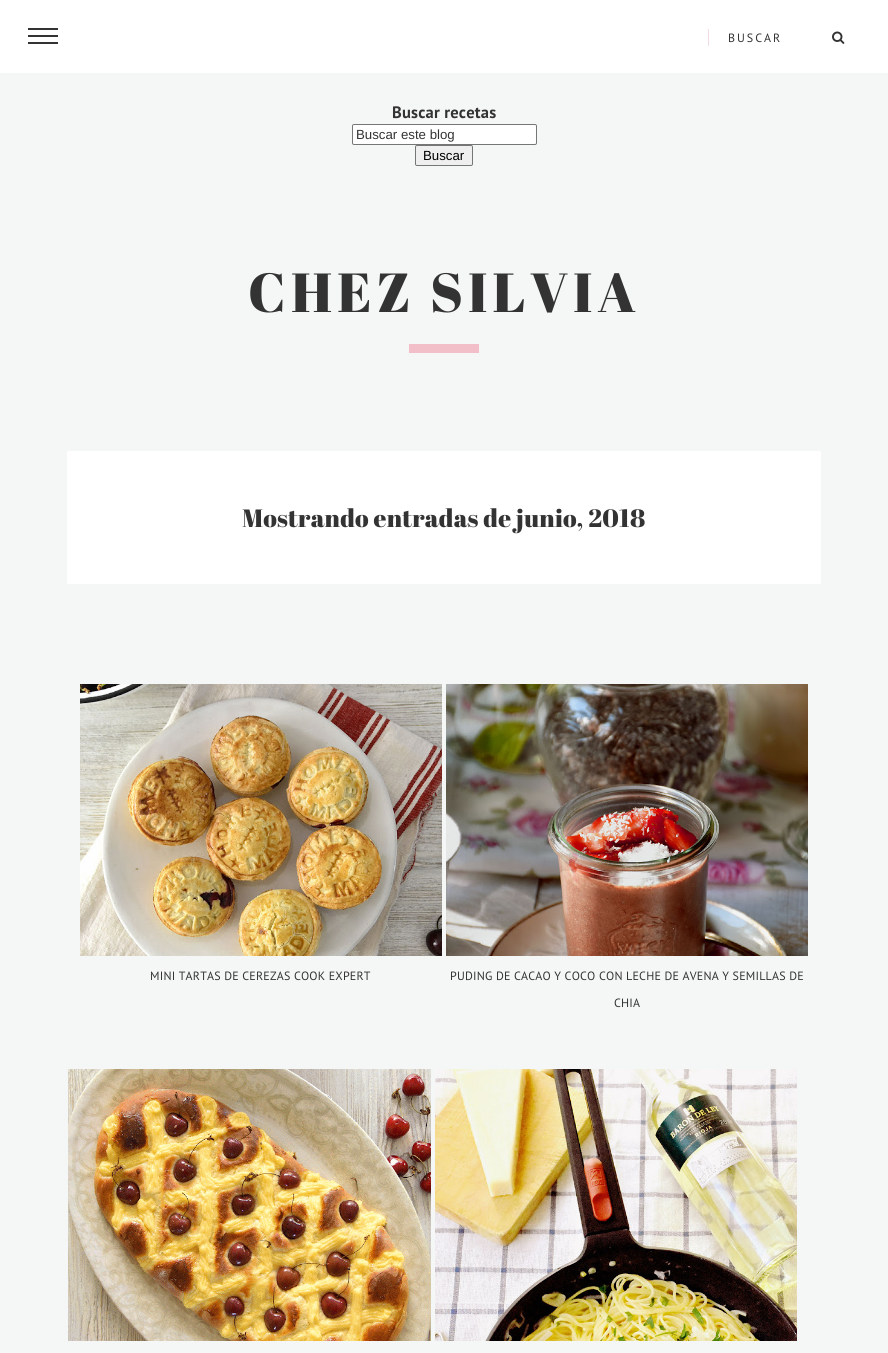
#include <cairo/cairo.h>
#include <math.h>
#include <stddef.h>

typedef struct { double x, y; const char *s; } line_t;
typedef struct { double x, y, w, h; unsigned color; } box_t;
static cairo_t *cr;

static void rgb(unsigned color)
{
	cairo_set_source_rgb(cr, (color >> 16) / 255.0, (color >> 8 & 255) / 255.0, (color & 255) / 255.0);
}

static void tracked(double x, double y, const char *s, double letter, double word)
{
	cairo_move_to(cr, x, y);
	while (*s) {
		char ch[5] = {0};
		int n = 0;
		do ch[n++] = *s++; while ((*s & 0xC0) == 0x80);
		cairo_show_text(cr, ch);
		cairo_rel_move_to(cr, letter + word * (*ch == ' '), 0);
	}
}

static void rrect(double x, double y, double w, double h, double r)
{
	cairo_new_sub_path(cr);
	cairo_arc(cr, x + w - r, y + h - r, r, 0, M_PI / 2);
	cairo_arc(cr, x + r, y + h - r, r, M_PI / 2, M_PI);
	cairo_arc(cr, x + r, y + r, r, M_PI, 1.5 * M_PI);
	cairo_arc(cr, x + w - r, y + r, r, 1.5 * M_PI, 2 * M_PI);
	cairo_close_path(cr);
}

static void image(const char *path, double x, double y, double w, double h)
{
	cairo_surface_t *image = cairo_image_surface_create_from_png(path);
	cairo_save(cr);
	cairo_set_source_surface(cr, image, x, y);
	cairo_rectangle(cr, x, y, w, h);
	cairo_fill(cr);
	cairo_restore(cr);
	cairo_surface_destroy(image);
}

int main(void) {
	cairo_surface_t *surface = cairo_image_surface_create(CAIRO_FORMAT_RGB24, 888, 1353);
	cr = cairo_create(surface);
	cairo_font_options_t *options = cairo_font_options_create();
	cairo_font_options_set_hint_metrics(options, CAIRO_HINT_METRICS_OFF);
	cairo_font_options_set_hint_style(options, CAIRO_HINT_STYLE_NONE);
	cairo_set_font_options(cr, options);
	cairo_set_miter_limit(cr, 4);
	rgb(0xf5f6f6);
	cairo_paint(cr);
	{
		static const box_t items[] = {
			{0, 0, 888, 73, 0xffffff},
			{28, 28, 30, 2, 0x333333},
			{28, 35, 30, 2, 0x333333},
			{28, 42, 30, 2, 0x333333},
			{708, 29, 1, 17, 0xf2dee2},
		};
		for (size_t i = 0; i < sizeof items / sizeof *items; i++) {
			rgb(items[i].color);
			cairo_rectangle(cr, items[i].x, items[i].y, items[i].w, items[i].h);
			cairo_fill(cr);
		}
	}
	image("img/1.png", 832, 31, 13, 13);
	rgb(0xffffff);
	rrect(352.5, 124.5, 184, 20, 1.5);
	cairo_fill_preserve(cr);
	rgb(0x767676);
	cairo_set_line_width(cr, 1);
	cairo_stroke(cr);
	rgb(0xefefef);
	rrect(415.5, 145.5, 57, 20, 1.5);
	cairo_fill_preserve(cr);
	rgb(0x767676);
	cairo_stroke(cr);
	rgb(0xf2bfc9);
	cairo_rectangle(cr, 409, 344, 70, 9);
	cairo_fill(cr);
	rgb(0xffffff);
	cairo_rectangle(cr, 67, 451, 754, 133);
	cairo_fill(cr);
	image("img/2.png", 80, 684, 362, 272);
	image("img/3.png", 446, 684, 362, 272);
	image("img/4.png", 68, 1069, 363, 272);
	image("img/5.png", 435, 1069, 362, 272);
	cairo_select_font_face(cr, "PT Sans", CAIRO_FONT_SLANT_NORMAL, CAIRO_FONT_WEIGHT_NORMAL);
	cairo_set_font_size(cr, 12);
	rgb(0x333333);
	tracked(728, 42, "BUSCAR", 2, 0);
	cairo_select_font_face(cr, "PT Sans", CAIRO_FONT_SLANT_NORMAL, CAIRO_FONT_WEIGHT_BOLD);
	cairo_set_font_size(cr, 16.5);
	tracked(392, 118, "Buscar recetas", 0.2, 0);
	cairo_select_font_face(cr, "Liberation Sans", CAIRO_FONT_SLANT_NORMAL, CAIRO_FONT_WEIGHT_NORMAL);
	cairo_set_font_size(cr, 13.25);
	cairo_move_to(cr, 356, 139);
	cairo_show_text(cr, "Buscar este blog");
	rgb(0x000000);
	cairo_move_to(cr, 423, 160);
	cairo_show_text(cr, "Buscar");
	cairo_select_font_face(cr, "Abril Fatface", CAIRO_FONT_SLANT_NORMAL, CAIRO_FONT_WEIGHT_NORMAL);
	cairo_set_font_size(cr, 55);
	rgb(0x333333);
	tracked(248, 312, "CHEZ SILVIA", 5, 0);
	cairo_set_font_size(cr, 25);
	tracked(242, 527, "Mostrando entradas de junio, 2018", 0.2, 0);
	cairo_select_font_face(cr, "PT Sans", CAIRO_FONT_SLANT_NORMAL, CAIRO_FONT_WEIGHT_NORMAL);
	cairo_set_font_size(cr, 12);
	{
		static const line_t items[] = {
			{150, 980, "MINI TARTAS DE CEREZAS COOK EXPERT"},
			{450, 980, "PUDING DE CACAO Y COCO CON LECHE DE AVENA Y SEMILLAS DE"},
			{614, 1007, "CHIA"},
		};
		for (size_t i = 0; i < sizeof items / sizeof *items; i++) {
			tracked(items[i].x, items[i].y, items[i].s, 0.2, 0);
		}
	}
	cairo_surface_write_to_png(surface, "page.png");
	cairo_font_options_destroy(options);
	cairo_destroy(cr);
	cairo_surface_destroy(surface);
	return 0;
}
